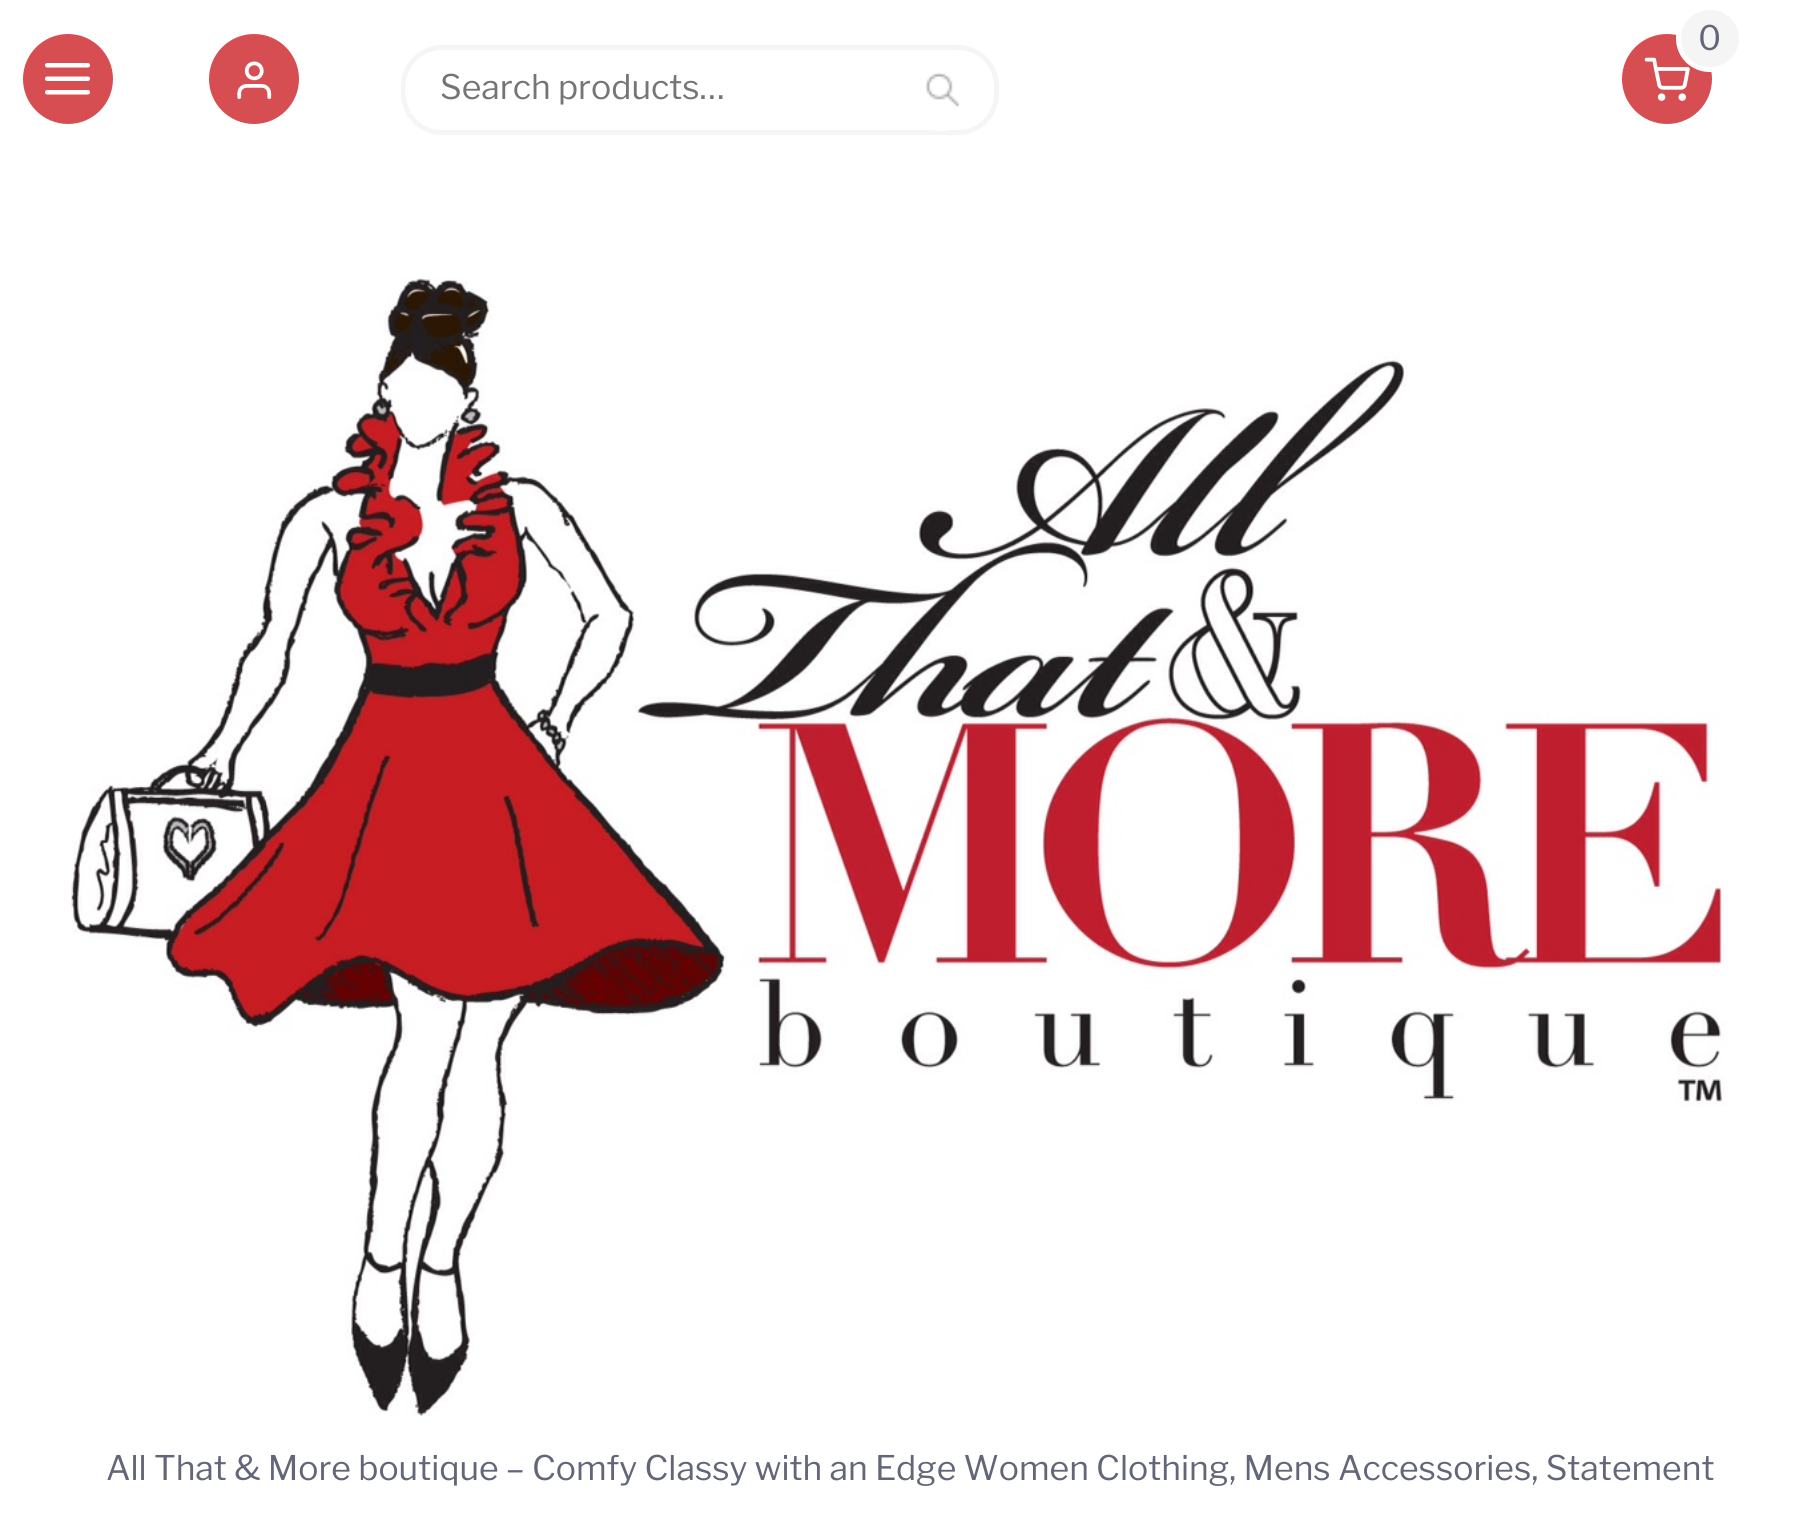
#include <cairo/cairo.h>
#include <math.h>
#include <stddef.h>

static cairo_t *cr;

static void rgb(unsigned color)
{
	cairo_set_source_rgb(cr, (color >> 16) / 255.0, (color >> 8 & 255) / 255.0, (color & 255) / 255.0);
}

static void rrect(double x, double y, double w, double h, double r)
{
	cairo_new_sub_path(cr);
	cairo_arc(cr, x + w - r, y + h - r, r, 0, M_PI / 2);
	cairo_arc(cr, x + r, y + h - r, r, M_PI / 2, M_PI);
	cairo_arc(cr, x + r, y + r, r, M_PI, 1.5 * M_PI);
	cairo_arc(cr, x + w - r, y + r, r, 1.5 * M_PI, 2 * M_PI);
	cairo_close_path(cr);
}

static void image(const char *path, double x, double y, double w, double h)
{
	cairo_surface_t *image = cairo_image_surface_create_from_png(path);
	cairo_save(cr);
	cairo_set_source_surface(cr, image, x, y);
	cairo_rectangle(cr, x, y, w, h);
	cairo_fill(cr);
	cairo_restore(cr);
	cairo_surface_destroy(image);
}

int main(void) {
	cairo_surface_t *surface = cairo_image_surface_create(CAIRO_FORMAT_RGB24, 1819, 1518);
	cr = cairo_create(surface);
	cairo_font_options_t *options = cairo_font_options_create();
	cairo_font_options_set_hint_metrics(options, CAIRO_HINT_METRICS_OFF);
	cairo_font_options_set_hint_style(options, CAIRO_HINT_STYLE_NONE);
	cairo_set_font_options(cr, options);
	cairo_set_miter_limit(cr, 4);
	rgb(0xffffff);
	cairo_paint(cr);
	rgb(0xd64e52);
	cairo_arc(cr, 68, 79, 45, 0, 2 * M_PI);
	cairo_fill(cr);
	image("img/1.png", 45, 63, 45, 32);
	cairo_arc(cr, 1667, 79, 45, 0, 2 * M_PI);
	cairo_fill(cr);
	image("img/2.png", 1644, 57, 46, 44);
	rgb(0xf5f5f5);
	rrect(1678.5, 7.5, 63, 62, 31);
	cairo_fill_preserve(cr);
	rgb(0xffffff);
	cairo_set_line_width(cr, 5);
	cairo_stroke(cr);
	rgb(0xd64e52);
	cairo_arc(cr, 254, 79, 45, 0, 2 * M_PI);
	cairo_fill(cr);
	image("img/3.png", 237, 61, 35, 38);
	rrect(403.5, 47.5, 593, 85, 38.5);
	rgb(0xf5f5f5);
	cairo_stroke(cr);
	rgb(0xffffff);
	rrect(405, 50, 491, 78, 39);
	cairo_fill(cr);
	cairo_arc(cr, 942.5, 90.5, 40.5, 0, 2 * M_PI);
	cairo_fill(cr);
	image("img/4.png", 924, 72, 36, 36);
	image("img/5.png", 71, 278, 1658, 1138);
	cairo_select_font_face(cr, "Libre Franklin", CAIRO_FONT_SLANT_NORMAL, CAIRO_FONT_WEIGHT_NORMAL);
	cairo_set_font_size(cr, 33.75);
	rgb(0x626678);
	cairo_move_to(cr, 1698, 50);
	cairo_show_text(cr, "0");
	rgb(0x757575);
	cairo_move_to(cr, 440, 99);
	cairo_show_text(cr, "Search products…");
	rgb(0x626678);
	cairo_move_to(cr, 106, 1480);
	cairo_show_text(cr, "All That & More boutique – Comfy Classy with an Edge Women Clothing, Mens Accessories, Statement");
	cairo_surface_write_to_png(surface, "page.png");
	cairo_font_options_destroy(options);
	cairo_destroy(cr);
	cairo_surface_destroy(surface);
	return 0;
}
